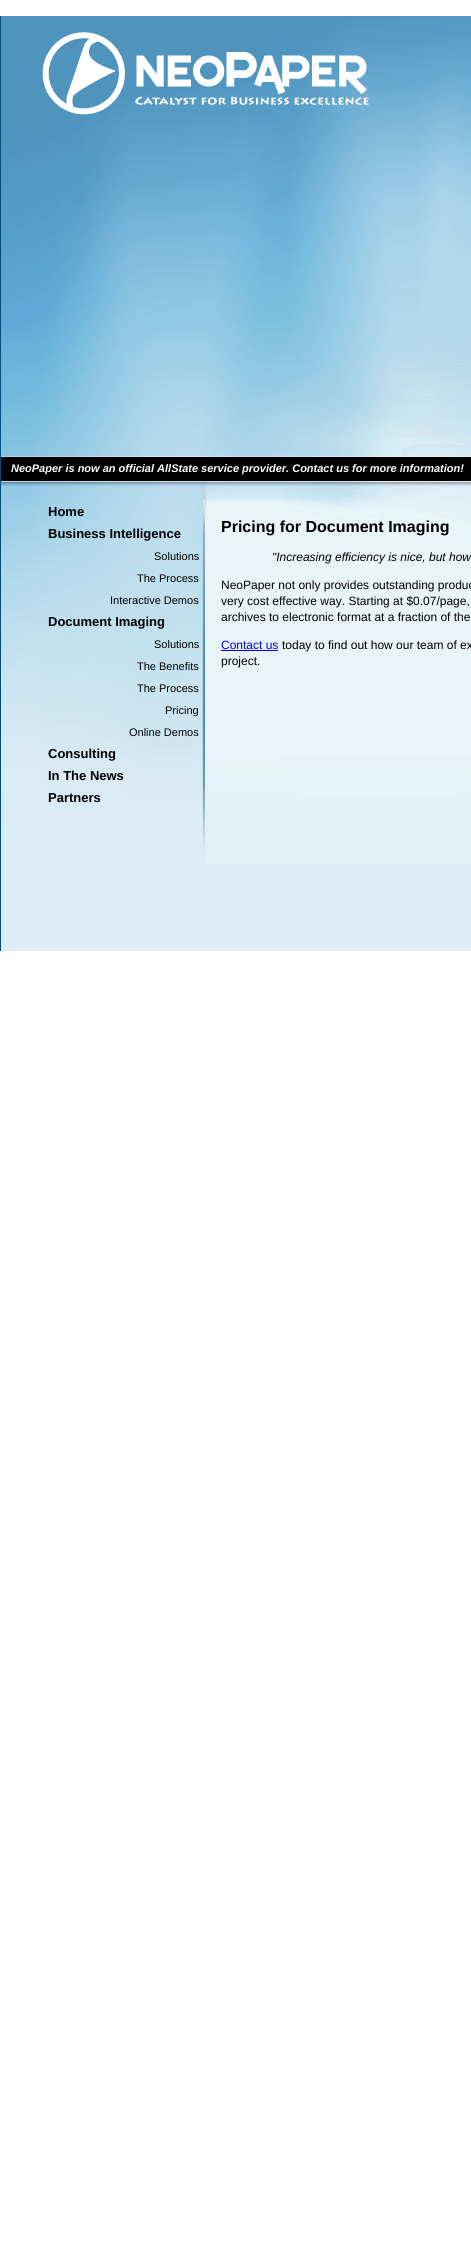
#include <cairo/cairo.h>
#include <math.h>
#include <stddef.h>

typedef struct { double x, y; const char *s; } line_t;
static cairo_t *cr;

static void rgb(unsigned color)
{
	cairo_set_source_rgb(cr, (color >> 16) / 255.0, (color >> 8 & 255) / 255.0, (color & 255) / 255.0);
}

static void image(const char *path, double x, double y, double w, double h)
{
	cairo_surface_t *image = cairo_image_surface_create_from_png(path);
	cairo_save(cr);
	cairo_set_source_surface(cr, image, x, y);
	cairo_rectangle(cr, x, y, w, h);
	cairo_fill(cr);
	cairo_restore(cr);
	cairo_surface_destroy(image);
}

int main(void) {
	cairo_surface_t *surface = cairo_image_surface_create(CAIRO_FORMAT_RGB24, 471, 2255);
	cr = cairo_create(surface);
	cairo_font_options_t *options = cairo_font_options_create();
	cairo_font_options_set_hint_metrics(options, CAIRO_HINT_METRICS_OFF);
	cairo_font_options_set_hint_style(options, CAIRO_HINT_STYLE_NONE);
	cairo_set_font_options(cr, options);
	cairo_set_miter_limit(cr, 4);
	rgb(0xffffff);
	cairo_paint(cr);
	rgb(0xddedf5);
	cairo_rectangle(cr, 1, 865, 470, 86);
	cairo_fill(cr);
	image("img/1.png", 1, 16, 470, 849);
	rgb(0x004f7c);
	cairo_rectangle(cr, 0, 16, 1, 935);
	cairo_fill(cr);
	image("img/2.png", 42, 32, 328, 83);
	image("img/3.png", 1, 456, 470, 30);
	rgb(0x0000ee);
	cairo_rectangle(cr, 221, 650, 57, 1);
	cairo_fill(cr);
	cairo_select_font_face(cr, "Liberation Sans", CAIRO_FONT_SLANT_ITALIC, CAIRO_FONT_WEIGHT_BOLD);
	cairo_set_font_size(cr, 11);
	rgb(0xffffff);
	cairo_move_to(cr, 11, 472);
	cairo_show_text(cr, "NeoPaper is now an official AllState service provider. Contact us for more information!");
	cairo_select_font_face(cr, "Liberation Sans", CAIRO_FONT_SLANT_NORMAL, CAIRO_FONT_WEIGHT_BOLD);
	cairo_set_font_size(cr, 13);
	rgb(0x000000);
	cairo_move_to(cr, 48, 516);
	cairo_show_text(cr, "Home");
	cairo_move_to(cr, 48, 538);
	cairo_show_text(cr, "Business Intelligence");
	cairo_select_font_face(cr, "Liberation Sans", CAIRO_FONT_SLANT_NORMAL, CAIRO_FONT_WEIGHT_NORMAL);
	cairo_set_font_size(cr, 11);
	{
		static const line_t items[] = {
			{154, 560, "Solutions"},
			{137, 582, "The Process"},
			{110, 604, "Interactive Demos"},
		};
		for (size_t i = 0; i < sizeof items / sizeof *items; i++) {
			cairo_move_to(cr, items[i].x, items[i].y);
			cairo_show_text(cr, items[i].s);
		}
	}
	cairo_select_font_face(cr, "Liberation Sans", CAIRO_FONT_SLANT_NORMAL, CAIRO_FONT_WEIGHT_BOLD);
	cairo_set_font_size(cr, 13);
	cairo_move_to(cr, 48, 626);
	cairo_show_text(cr, "Document Imaging");
	cairo_select_font_face(cr, "Liberation Sans", CAIRO_FONT_SLANT_NORMAL, CAIRO_FONT_WEIGHT_NORMAL);
	cairo_set_font_size(cr, 11);
	{
		static const line_t items[] = {
			{154, 648, "Solutions"},
			{137, 670, "The Benefits"},
			{137, 692, "The Process"},
			{165, 714, "Pricing"},
			{129, 736, "Online Demos"},
		};
		for (size_t i = 0; i < sizeof items / sizeof *items; i++) {
			cairo_move_to(cr, items[i].x, items[i].y);
			cairo_show_text(cr, items[i].s);
		}
	}
	cairo_select_font_face(cr, "Liberation Sans", CAIRO_FONT_SLANT_NORMAL, CAIRO_FONT_WEIGHT_BOLD);
	cairo_set_font_size(cr, 13);
	{
		static const line_t items[] = {
			{48, 758, "Consulting"},
			{48, 780, "In The News"},
			{48, 802, "Partners"},
		};
		for (size_t i = 0; i < sizeof items / sizeof *items; i++) {
			cairo_move_to(cr, items[i].x, items[i].y);
			cairo_show_text(cr, items[i].s);
		}
	}
	cairo_set_font_size(cr, 16);
	cairo_move_to(cr, 221, 532);
	cairo_show_text(cr, "Pricing for Document Imaging");
	cairo_select_font_face(cr, "Liberation Sans", CAIRO_FONT_SLANT_ITALIC, CAIRO_FONT_WEIGHT_NORMAL);
	cairo_set_font_size(cr, 12);
	cairo_move_to(cr, 272, 561);
	cairo_show_text(cr, "\"Increasing efficiency is nice, but how");
	cairo_select_font_face(cr, "Liberation Sans", CAIRO_FONT_SLANT_NORMAL, CAIRO_FONT_WEIGHT_NORMAL);
	{
		static const line_t items[] = {
			{221, 589, "NeoPaper not only provides outstanding produc"},
			{221, 605, "very cost effective way. Starting at $0.07/page,"},
			{221, 621, "archives to electronic format at a fraction of the"},
		};
		for (size_t i = 0; i < sizeof items / sizeof *items; i++) {
			cairo_move_to(cr, items[i].x, items[i].y);
			cairo_show_text(cr, items[i].s);
		}
	}
	rgb(0x0000ee);
	cairo_move_to(cr, 221, 649);
	cairo_show_text(cr, "Contact us");
	rgb(0x000000);
	cairo_move_to(cr, 282, 649);
	cairo_show_text(cr, "today to find out how our team of ex");
	cairo_move_to(cr, 221, 665);
	cairo_show_text(cr, "project.");
	cairo_surface_write_to_png(surface, "page.png");
	cairo_font_options_destroy(options);
	cairo_destroy(cr);
	cairo_surface_destroy(surface);
	return 0;
}
